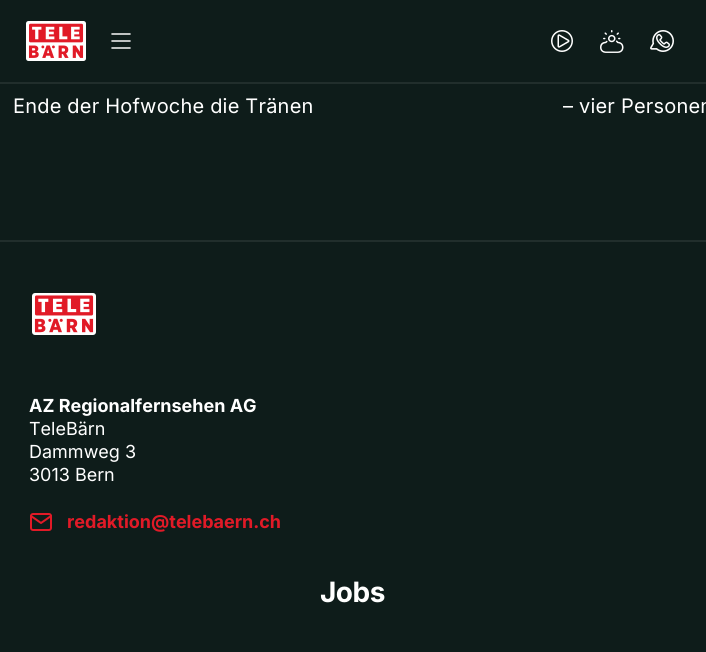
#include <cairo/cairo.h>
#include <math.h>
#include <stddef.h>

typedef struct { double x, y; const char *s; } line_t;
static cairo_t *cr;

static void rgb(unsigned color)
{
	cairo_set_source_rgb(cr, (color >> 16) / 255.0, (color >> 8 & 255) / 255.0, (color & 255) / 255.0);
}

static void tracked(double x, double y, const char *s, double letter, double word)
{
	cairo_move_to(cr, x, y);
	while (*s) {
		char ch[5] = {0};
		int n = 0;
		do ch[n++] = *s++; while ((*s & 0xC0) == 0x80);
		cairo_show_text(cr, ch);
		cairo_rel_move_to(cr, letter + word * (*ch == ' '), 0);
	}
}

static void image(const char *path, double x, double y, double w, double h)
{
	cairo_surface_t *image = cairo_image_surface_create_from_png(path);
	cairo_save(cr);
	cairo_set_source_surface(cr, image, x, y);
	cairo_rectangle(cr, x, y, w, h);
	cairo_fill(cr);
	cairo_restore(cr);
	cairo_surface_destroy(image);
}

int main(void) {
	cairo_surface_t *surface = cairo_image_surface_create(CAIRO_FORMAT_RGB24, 706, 652);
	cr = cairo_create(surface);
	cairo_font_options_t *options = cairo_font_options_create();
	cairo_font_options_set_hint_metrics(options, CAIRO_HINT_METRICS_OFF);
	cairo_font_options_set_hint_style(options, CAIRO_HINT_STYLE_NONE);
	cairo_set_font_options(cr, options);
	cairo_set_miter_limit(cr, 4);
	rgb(0x0e1c1a);
	cairo_paint(cr);
	rgb(0x212e2c);
	cairo_rectangle(cr, 0, 82, 706, 2);
	cairo_fill(cr);
	image("img/1.png", 26, 21, 60, 40);
	image("img/2.png", 111, 33, 20, 16);
	image("img/3.png", 551, 30, 22, 22);
	image("img/4.png", 600, 30, 24, 23);
	image("img/5.png", 650, 30, 24, 22);
	cairo_rectangle(cr, 0, 240, 706, 2);
	cairo_fill(cr);
	image("img/6.png", 32, 293, 64, 42);
	image("img/7.png", 30, 513, 22, 18);
	cairo_select_font_face(cr, "Inter", CAIRO_FONT_SLANT_NORMAL, CAIRO_FONT_WEIGHT_NORMAL);
	cairo_set_font_size(cr, 20);
	rgb(0xffffff);
	tracked(13, 113, "Ende der Hofwoche die Tränen", 0.2, 0);
	tracked(563, 113, "– vier Personen", 0.2, 0);
	cairo_select_font_face(cr, "Inter", CAIRO_FONT_SLANT_NORMAL, CAIRO_FONT_WEIGHT_BOLD);
	cairo_set_font_size(cr, 18);
	cairo_move_to(cr, 29, 412);
	cairo_show_text(cr, "AZ Regionalfernsehen AG");
	cairo_select_font_face(cr, "Inter", CAIRO_FONT_SLANT_NORMAL, CAIRO_FONT_WEIGHT_NORMAL);
	{
		static const line_t items[] = {
			{29, 435, "TeleBärn"},
			{29, 458, "Dammweg 3"},
			{29, 481, "3013 Bern"},
		};
		for (size_t i = 0; i < sizeof items / sizeof *items; i++) {
			cairo_move_to(cr, items[i].x, items[i].y);
			cairo_show_text(cr, items[i].s);
		}
	}
	cairo_select_font_face(cr, "Inter", CAIRO_FONT_SLANT_NORMAL, CAIRO_FONT_WEIGHT_BOLD);
	rgb(0xe11a27);
	cairo_move_to(cr, 67, 528);
	cairo_show_text(cr, "redaktion@telebaern.ch");
	cairo_set_font_size(cr, 28);
	rgb(0xffffff);
	tracked(320, 602, "Jobs", -0.5, 0);
	cairo_surface_write_to_png(surface, "page.png");
	cairo_font_options_destroy(options);
	cairo_destroy(cr);
	cairo_surface_destroy(surface);
	return 0;
}
